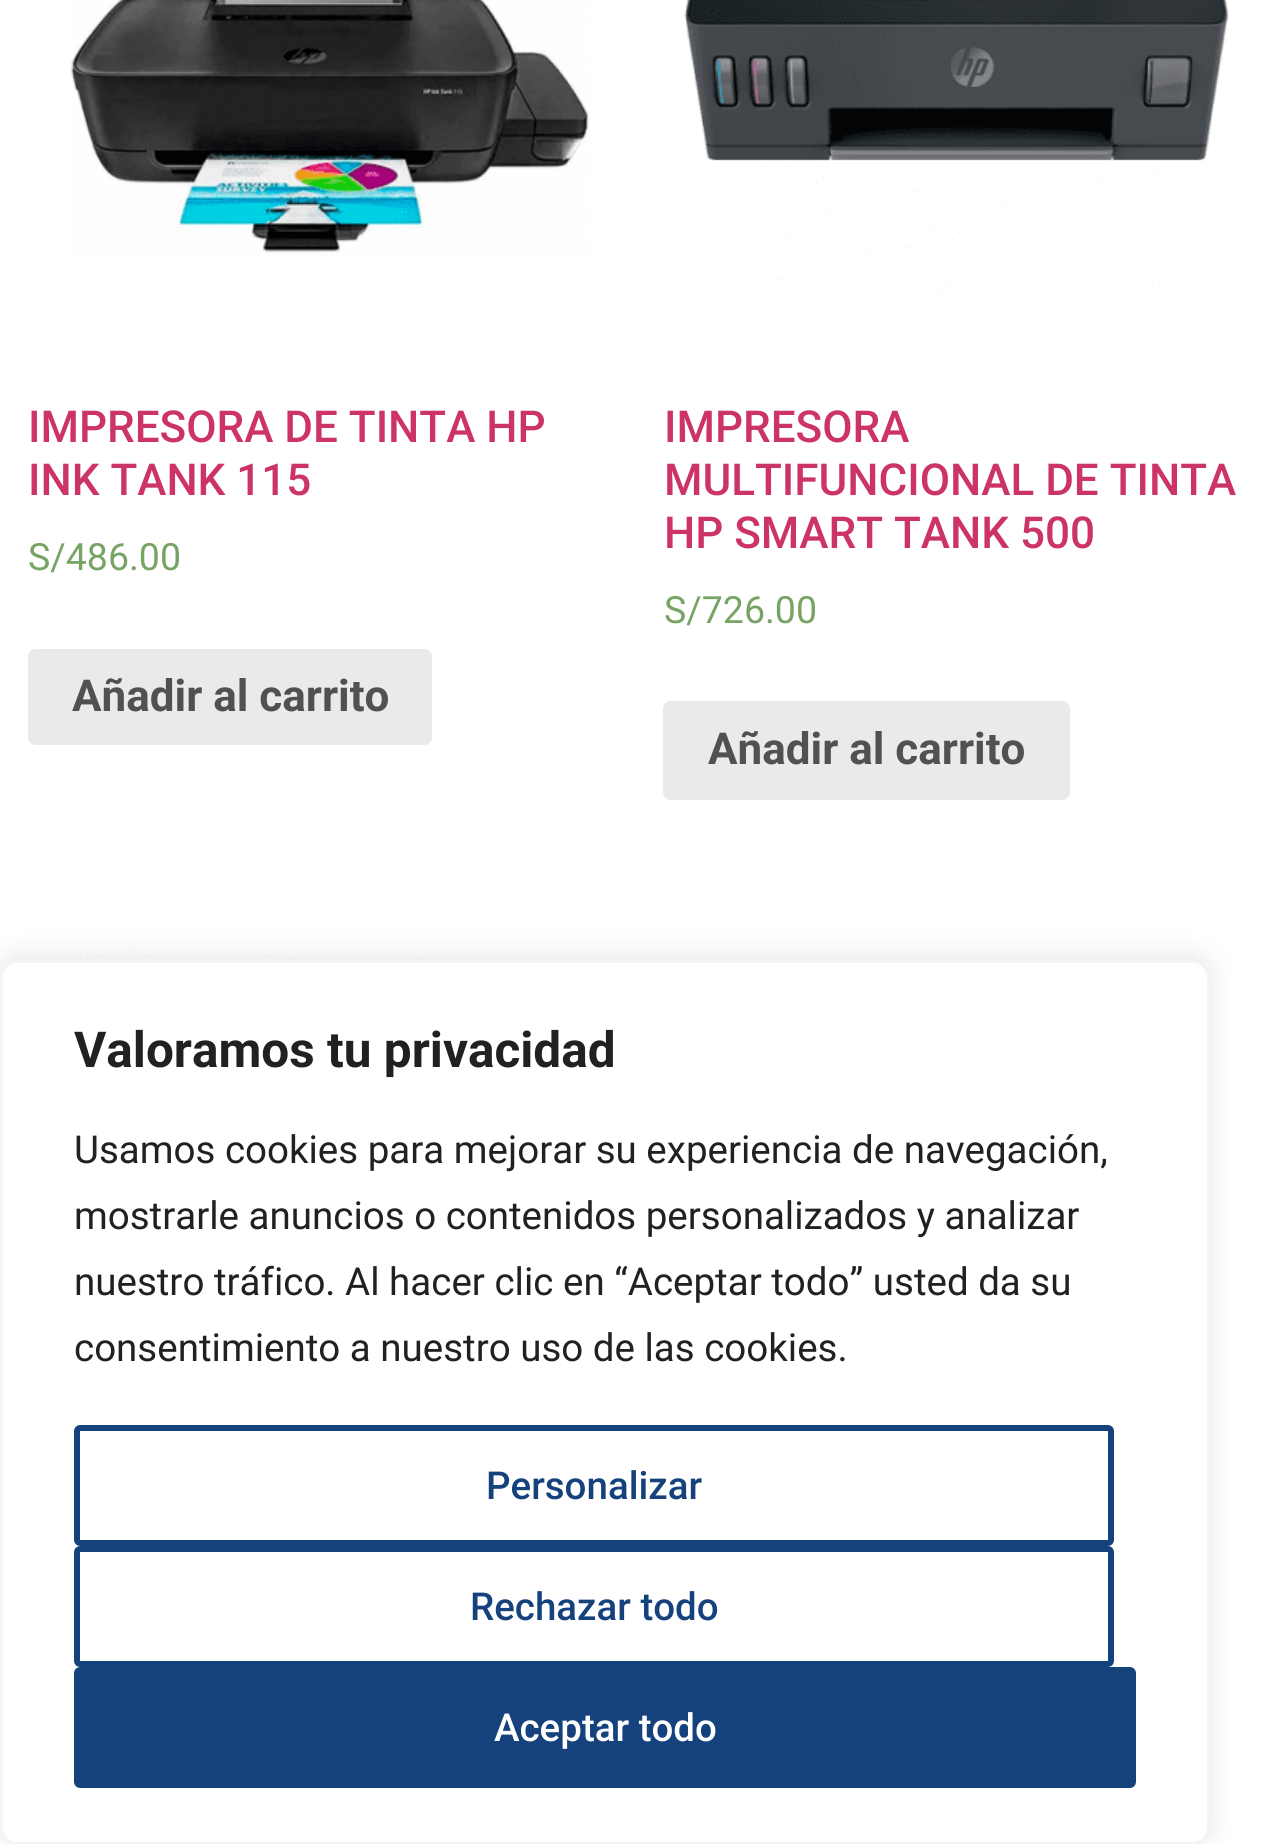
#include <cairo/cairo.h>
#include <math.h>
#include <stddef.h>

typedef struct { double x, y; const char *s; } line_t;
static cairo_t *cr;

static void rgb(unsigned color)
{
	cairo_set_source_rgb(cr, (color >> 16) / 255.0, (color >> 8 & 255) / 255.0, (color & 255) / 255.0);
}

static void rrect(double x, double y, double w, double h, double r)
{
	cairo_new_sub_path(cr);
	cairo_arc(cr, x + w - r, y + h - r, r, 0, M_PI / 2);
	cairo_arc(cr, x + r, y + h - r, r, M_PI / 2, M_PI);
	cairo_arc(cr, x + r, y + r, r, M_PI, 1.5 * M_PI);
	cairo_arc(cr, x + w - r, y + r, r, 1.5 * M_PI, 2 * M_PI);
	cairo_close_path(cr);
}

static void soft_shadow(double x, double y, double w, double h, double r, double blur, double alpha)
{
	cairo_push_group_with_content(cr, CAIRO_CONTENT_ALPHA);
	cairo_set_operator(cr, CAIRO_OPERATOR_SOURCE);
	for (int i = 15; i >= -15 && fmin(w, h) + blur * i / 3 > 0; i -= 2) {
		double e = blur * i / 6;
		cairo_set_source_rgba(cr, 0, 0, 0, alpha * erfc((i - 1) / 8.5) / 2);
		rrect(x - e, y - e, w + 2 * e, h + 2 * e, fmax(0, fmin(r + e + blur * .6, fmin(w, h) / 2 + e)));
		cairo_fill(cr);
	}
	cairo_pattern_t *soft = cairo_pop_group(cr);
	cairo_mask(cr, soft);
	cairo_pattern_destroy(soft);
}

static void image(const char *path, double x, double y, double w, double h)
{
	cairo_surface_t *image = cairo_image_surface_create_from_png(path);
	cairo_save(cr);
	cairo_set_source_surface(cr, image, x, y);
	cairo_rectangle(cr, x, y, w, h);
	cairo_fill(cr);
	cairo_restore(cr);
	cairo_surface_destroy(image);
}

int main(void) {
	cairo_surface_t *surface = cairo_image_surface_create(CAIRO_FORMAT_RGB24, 1277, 1844);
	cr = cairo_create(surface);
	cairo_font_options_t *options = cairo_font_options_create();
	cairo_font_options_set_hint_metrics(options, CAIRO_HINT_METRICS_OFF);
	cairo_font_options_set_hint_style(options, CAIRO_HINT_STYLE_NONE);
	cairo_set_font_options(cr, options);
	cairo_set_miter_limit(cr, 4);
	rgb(0xffffff);
	cairo_paint(cr);
	image("img/1.png", 70, 0, 519, 256);
	rgb(0xebe9eb);
	rrect(28, 649, 404, 96, 8);
	cairo_fill(cr);
	image("img/2.png", 667, 0, 575, 335);
	rrect(663, 701, 407, 99, 8);
	cairo_fill(cr);
	image("img/3.png", 36, 950, 571, 10);
	rgb(0xacabab);
	soft_shadow(0, 957, 1210, 886, 17, 14, 0.3);
	rgb(0xffffff);
	rrect(1.5, 961.5, 1207, 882, 15.5);
	cairo_fill_preserve(cr);
	rgb(0xf4f4f4);
	cairo_set_line_width(cr, 3);
	cairo_stroke(cr);
	rrect(77, 1428, 1034, 115, 3);
	rgb(0x15427d);
	cairo_set_line_width(cr, 6);
	cairo_stroke(cr);
	rrect(77, 1549, 1034, 115, 3);
	cairo_stroke(cr);
	rrect(77, 1670, 1056, 115, 3);
	cairo_fill_preserve(cr);
	cairo_stroke(cr);
	cairo_select_font_face(cr, "Roboto Medium", CAIRO_FONT_SLANT_NORMAL, CAIRO_FONT_WEIGHT_NORMAL);
	cairo_set_font_size(cr, 44);
	rgb(0xcc3366);
	cairo_move_to(cr, 28, 442);
	cairo_show_text(cr, "IMPRESORA DE TINTA HP");
	cairo_move_to(cr, 28, 495);
	cairo_show_text(cr, "INK TANK 115");
	cairo_select_font_face(cr, "Roboto", CAIRO_FONT_SLANT_NORMAL, CAIRO_FONT_WEIGHT_NORMAL);
	cairo_set_font_size(cr, 37.5);
	rgb(0x77a464);
	cairo_move_to(cr, 28, 570);
	cairo_show_text(cr, "S/486.00");
	cairo_select_font_face(cr, "Roboto", CAIRO_FONT_SLANT_NORMAL, CAIRO_FONT_WEIGHT_BOLD);
	cairo_set_font_size(cr, 44);
	rgb(0x515151);
	cairo_move_to(cr, 72, 711);
	cairo_show_text(cr, "Añadir al carrito");
	cairo_select_font_face(cr, "Roboto Medium", CAIRO_FONT_SLANT_NORMAL, CAIRO_FONT_WEIGHT_NORMAL);
	rgb(0xcc3366);
	{
		static const line_t items[] = {
			{664, 442, "IMPRESORA"},
			{664, 495, "MULTIFUNCIONAL DE TINTA"},
			{664, 548, "HP SMART TANK 500"},
		};
		for (size_t i = 0; i < sizeof items / sizeof *items; i++) {
			cairo_move_to(cr, items[i].x, items[i].y);
			cairo_show_text(cr, items[i].s);
		}
	}
	cairo_select_font_face(cr, "Roboto", CAIRO_FONT_SLANT_NORMAL, CAIRO_FONT_WEIGHT_NORMAL);
	cairo_set_font_size(cr, 37.5);
	rgb(0x77a464);
	cairo_move_to(cr, 664, 623);
	cairo_show_text(cr, "S/726.00");
	cairo_select_font_face(cr, "Roboto", CAIRO_FONT_SLANT_NORMAL, CAIRO_FONT_WEIGHT_BOLD);
	cairo_set_font_size(cr, 44);
	rgb(0x515151);
	cairo_move_to(cr, 708, 764);
	cairo_show_text(cr, "Añadir al carrito");
	cairo_set_font_size(cr, 49.5);
	rgb(0x212121);
	cairo_move_to(cr, 74, 1067);
	cairo_show_text(cr, "Valoramos tu privacidad");
	cairo_select_font_face(cr, "Roboto", CAIRO_FONT_SLANT_NORMAL, CAIRO_FONT_WEIGHT_NORMAL);
	cairo_set_font_size(cr, 38.5);
	{
		static const line_t items[] = {
			{74, 1163, "Usamos cookies para mejorar su experiencia de navegación,"},
			{74, 1229, "mostrarle anuncios o contenidos personalizados y analizar"},
			{74, 1295, "nuestro tráfico. Al hacer clic en “Aceptar todo” usted da su"},
			{74, 1361, "consentimiento a nuestro uso de las cookies."},
		};
		for (size_t i = 0; i < sizeof items / sizeof *items; i++) {
			cairo_move_to(cr, items[i].x, items[i].y);
			cairo_show_text(cr, items[i].s);
		}
	}
	cairo_select_font_face(cr, "Roboto Medium", CAIRO_FONT_SLANT_NORMAL, CAIRO_FONT_WEIGHT_NORMAL);
	rgb(0x15427d);
	cairo_move_to(cr, 486, 1499);
	cairo_show_text(cr, "Personalizar");
	cairo_move_to(cr, 470, 1620);
	cairo_show_text(cr, "Rechazar todo");
	rgb(0xffffff);
	cairo_move_to(cr, 494, 1741);
	cairo_show_text(cr, "Aceptar todo");
	cairo_surface_write_to_png(surface, "page.png");
	cairo_font_options_destroy(options);
	cairo_destroy(cr);
	cairo_surface_destroy(surface);
	return 0;
}
